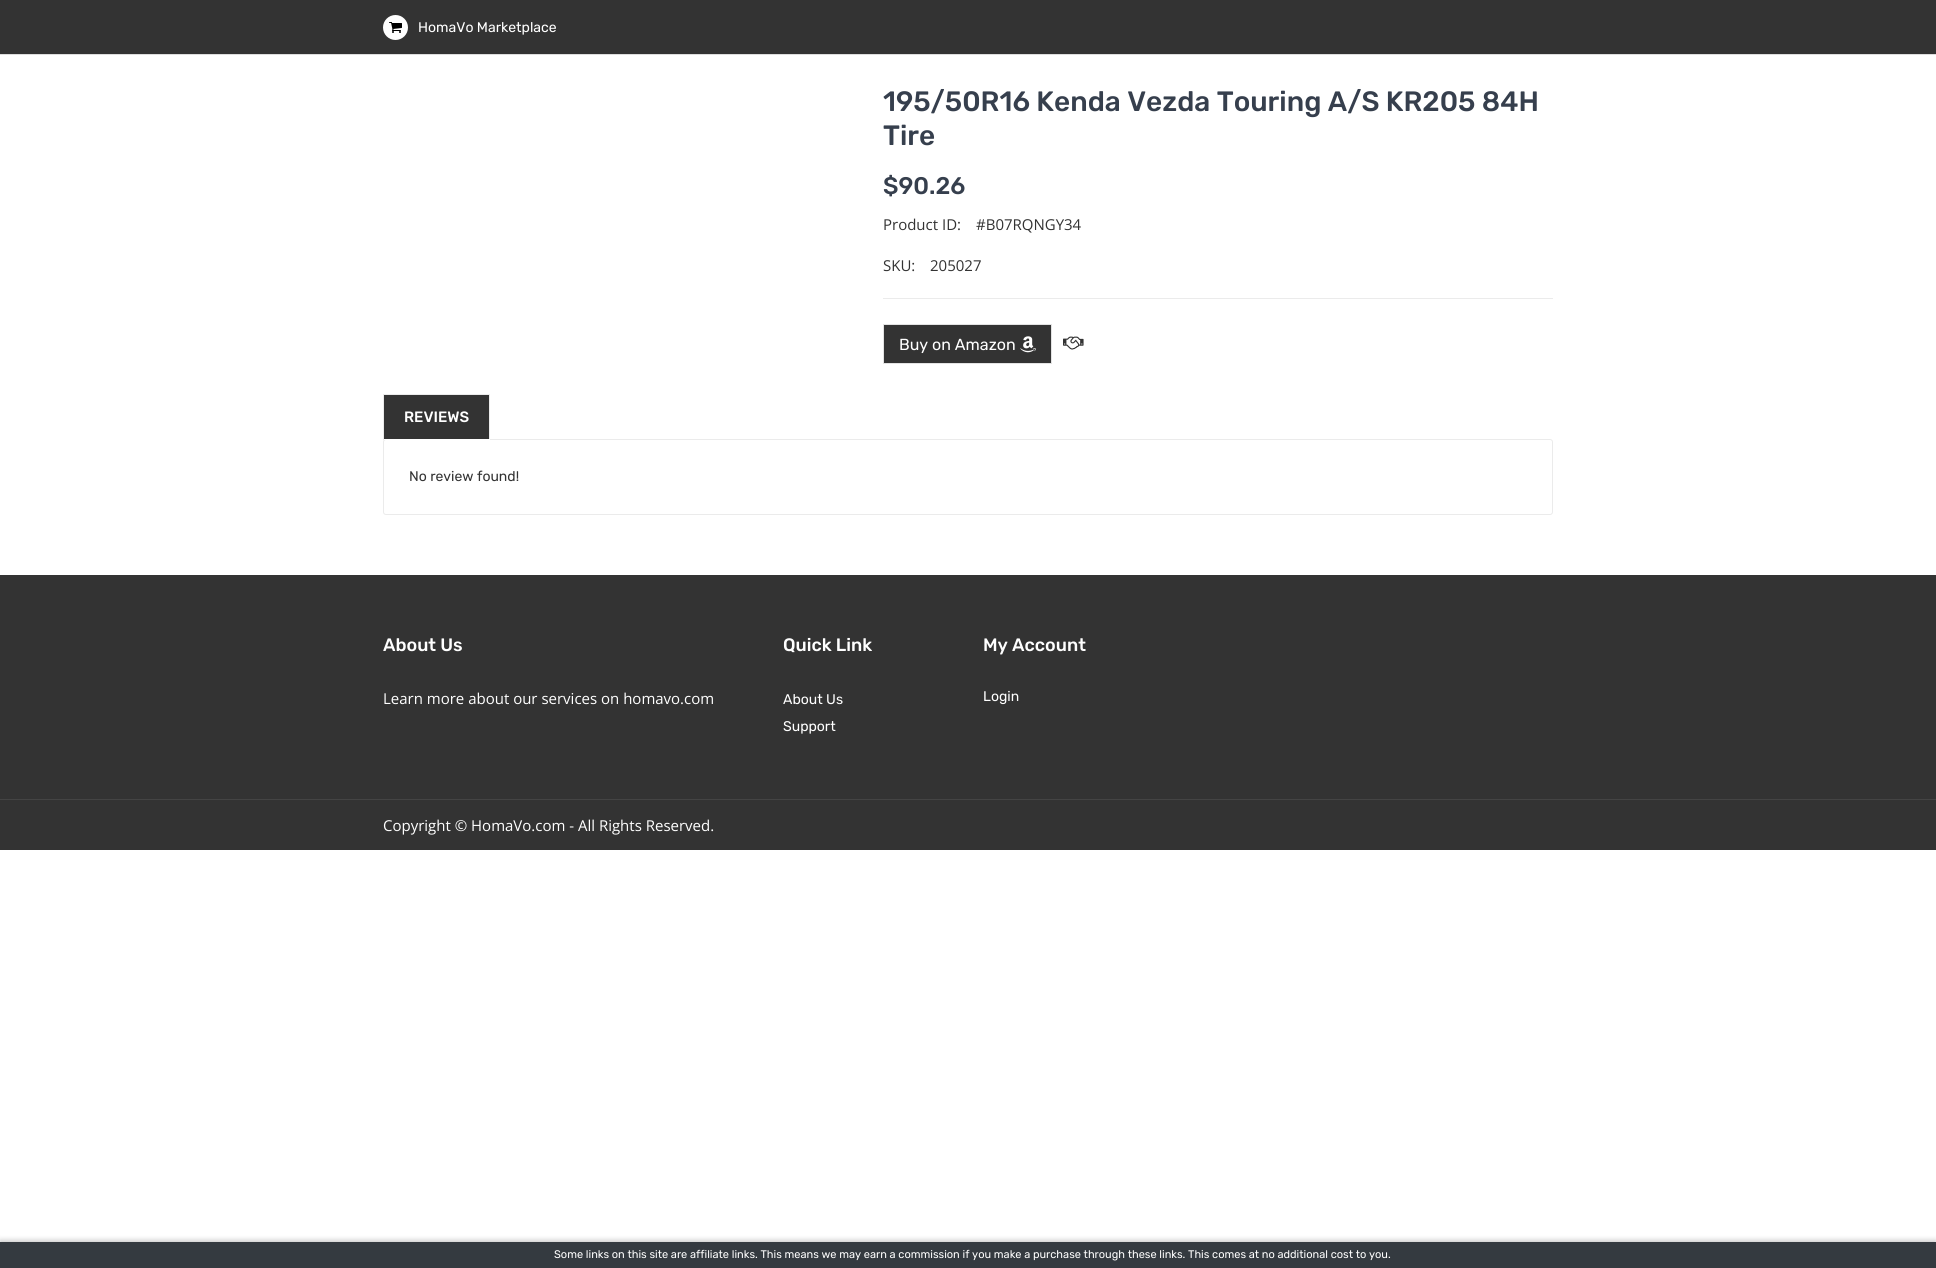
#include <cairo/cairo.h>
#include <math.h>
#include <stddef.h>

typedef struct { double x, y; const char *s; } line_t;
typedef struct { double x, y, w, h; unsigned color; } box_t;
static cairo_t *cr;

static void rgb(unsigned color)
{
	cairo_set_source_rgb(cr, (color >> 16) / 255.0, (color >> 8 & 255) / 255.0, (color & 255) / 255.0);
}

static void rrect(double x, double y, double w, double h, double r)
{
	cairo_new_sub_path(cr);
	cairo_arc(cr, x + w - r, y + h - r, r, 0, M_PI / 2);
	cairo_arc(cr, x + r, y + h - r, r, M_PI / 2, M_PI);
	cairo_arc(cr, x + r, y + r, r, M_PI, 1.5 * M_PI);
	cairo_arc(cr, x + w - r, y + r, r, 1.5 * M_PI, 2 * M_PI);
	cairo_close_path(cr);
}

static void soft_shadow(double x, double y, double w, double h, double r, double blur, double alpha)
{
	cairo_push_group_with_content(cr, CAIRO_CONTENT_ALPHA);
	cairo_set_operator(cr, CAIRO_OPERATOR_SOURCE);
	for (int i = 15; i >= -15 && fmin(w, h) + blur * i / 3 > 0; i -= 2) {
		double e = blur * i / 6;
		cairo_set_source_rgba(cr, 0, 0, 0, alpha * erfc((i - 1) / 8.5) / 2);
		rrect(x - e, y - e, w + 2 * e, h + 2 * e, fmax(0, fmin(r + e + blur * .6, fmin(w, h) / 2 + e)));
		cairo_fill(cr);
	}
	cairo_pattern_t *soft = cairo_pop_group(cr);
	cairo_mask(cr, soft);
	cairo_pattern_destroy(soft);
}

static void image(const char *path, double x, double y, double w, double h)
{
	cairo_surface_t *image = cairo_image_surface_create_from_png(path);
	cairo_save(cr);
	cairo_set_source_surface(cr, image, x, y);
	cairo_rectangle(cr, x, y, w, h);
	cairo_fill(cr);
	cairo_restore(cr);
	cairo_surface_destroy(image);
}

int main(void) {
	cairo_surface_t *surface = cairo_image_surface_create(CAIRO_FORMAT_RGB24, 1936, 1268);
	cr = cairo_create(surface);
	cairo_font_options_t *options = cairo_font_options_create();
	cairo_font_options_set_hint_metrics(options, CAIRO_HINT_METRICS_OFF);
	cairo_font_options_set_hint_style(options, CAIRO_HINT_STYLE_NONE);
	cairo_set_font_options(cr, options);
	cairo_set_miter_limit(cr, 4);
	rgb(0xffffff);
	cairo_paint(cr);
	rgb(0x333333);
	cairo_rectangle(cr, 0, 0, 1936, 54);
	cairo_fill(cr);
	rgb(0xdddddd);
	cairo_rectangle(cr, 0, 54, 1936, 1);
	cairo_fill(cr);
	rgb(0xffffff);
	cairo_arc(cr, 395.5, 27.5, 12.5, 0, 2 * M_PI);
	cairo_fill(cr);
	image("img/1.png", 389, 22, 13, 11);
	rgb(0xebebeb);
	cairo_rectangle(cr, 883, 298, 670, 1);
	cairo_fill(cr);
	rgb(0x333333);
	cairo_rectangle(cr, 883.5, 324.5, 168, 39);
	cairo_fill_preserve(cr);
	rgb(0xe3e3e3);
	cairo_set_line_width(cr, 1);
	cairo_stroke(cr);
	image("img/2.png", 1020, 336, 16, 17);
	image("img/3.png", 1063, 336, 21, 14);
	rgb(0x333333);
	cairo_rectangle(cr, 384, 395, 105, 44);
	cairo_fill(cr);
	rgb(0xebebeb);
	cairo_rectangle(cr, 383, 394, 107, 1);
	cairo_fill(cr);
	rrect(383.5, 439.5, 1169, 75, 2.5);
	cairo_stroke(cr);
	{
		static const box_t items[] = {
			{489, 394, 1, 46, 0xebebeb},
			{383, 439, 107, 1, 0xffffff},
			{383, 394, 1, 46, 0xebebeb},
			{0, 575, 1936, 275, 0x333333},
			{0, 799, 1936, 1, 0x444444},
		};
		for (size_t i = 0; i < sizeof items / sizeof *items; i++) {
			rgb(items[i].color);
			cairo_rectangle(cr, items[i].x, items[i].y, items[i].w, items[i].h);
			cairo_fill(cr);
		}
	}
	rgb(0x000000);
	soft_shadow(0, 1240, 1936, 26, 0, 2.5, 0.2);
	rgb(0x343a40);
	cairo_rectangle(cr, 0, 1242, 1936, 26);
	cairo_fill(cr);
	cairo_select_font_face(cr, "Rubik", CAIRO_FONT_SLANT_NORMAL, CAIRO_FONT_WEIGHT_NORMAL);
	cairo_set_font_size(cr, 14);
	rgb(0xffffff);
	cairo_move_to(cr, 418, 32);
	cairo_show_text(cr, "HomaVo Marketplace");
	cairo_select_font_face(cr, "Rubik Medium", CAIRO_FONT_SLANT_NORMAL, CAIRO_FONT_WEIGHT_NORMAL);
	cairo_set_font_size(cr, 28);
	rgb(0x363f4d);
	cairo_move_to(cr, 883, 111);
	cairo_show_text(cr, "195/50R16 Kenda Vezda Touring A/S KR205 84H");
	cairo_move_to(cr, 883, 145);
	cairo_show_text(cr, "Tire");
	cairo_set_font_size(cr, 24);
	cairo_move_to(cr, 883, 194);
	cairo_show_text(cr, "$90.26");
	cairo_select_font_face(cr, "Open Sans", CAIRO_FONT_SLANT_NORMAL, CAIRO_FONT_WEIGHT_NORMAL);
	cairo_set_font_size(cr, 15);
	rgb(0x333333);
	{
		static const line_t items[] = {
			{883, 230, "Product ID:"},
			{976, 230, "#B07RQNGY34"},
			{883, 271, "SKU:"},
			{930, 271, "205027"},
		};
		for (size_t i = 0; i < sizeof items / sizeof *items; i++) {
			cairo_move_to(cr, items[i].x, items[i].y);
			cairo_show_text(cr, items[i].s);
		}
	}
	cairo_select_font_face(cr, "Rubik", CAIRO_FONT_SLANT_NORMAL, CAIRO_FONT_WEIGHT_NORMAL);
	cairo_set_font_size(cr, 16);
	rgb(0xffffff);
	cairo_move_to(cr, 899, 350);
	cairo_show_text(cr, "Buy on Amazon");
	cairo_select_font_face(cr, "Rubik Medium", CAIRO_FONT_SLANT_NORMAL, CAIRO_FONT_WEIGHT_NORMAL);
	cairo_set_font_size(cr, 15);
	cairo_move_to(cr, 404, 422);
	cairo_show_text(cr, "REVIEWS");
	cairo_select_font_face(cr, "Rubik", CAIRO_FONT_SLANT_NORMAL, CAIRO_FONT_WEIGHT_NORMAL);
	cairo_set_font_size(cr, 14);
	rgb(0x333333);
	cairo_move_to(cr, 409, 481);
	cairo_show_text(cr, "No review found!");
	cairo_select_font_face(cr, "Rubik Medium", CAIRO_FONT_SLANT_NORMAL, CAIRO_FONT_WEIGHT_NORMAL);
	cairo_set_font_size(cr, 18);
	rgb(0xffffff);
	cairo_move_to(cr, 383, 651);
	cairo_show_text(cr, "About Us");
	cairo_select_font_face(cr, "Open Sans", CAIRO_FONT_SLANT_NORMAL, CAIRO_FONT_WEIGHT_NORMAL);
	cairo_set_font_size(cr, 15);
	cairo_move_to(cr, 383, 704);
	cairo_show_text(cr, "Learn more about our services on homavo.com");
	cairo_select_font_face(cr, "Rubik Medium", CAIRO_FONT_SLANT_NORMAL, CAIRO_FONT_WEIGHT_NORMAL);
	cairo_set_font_size(cr, 18);
	cairo_move_to(cr, 783, 651);
	cairo_show_text(cr, "Quick Link");
	cairo_select_font_face(cr, "Rubik", CAIRO_FONT_SLANT_NORMAL, CAIRO_FONT_WEIGHT_NORMAL);
	cairo_set_font_size(cr, 14);
	cairo_move_to(cr, 783, 704);
	cairo_show_text(cr, "About Us");
	cairo_move_to(cr, 783, 731);
	cairo_show_text(cr, "Support");
	cairo_select_font_face(cr, "Rubik Medium", CAIRO_FONT_SLANT_NORMAL, CAIRO_FONT_WEIGHT_NORMAL);
	cairo_set_font_size(cr, 18);
	cairo_move_to(cr, 983, 651);
	cairo_show_text(cr, "My Account");
	cairo_select_font_face(cr, "Rubik", CAIRO_FONT_SLANT_NORMAL, CAIRO_FONT_WEIGHT_NORMAL);
	cairo_set_font_size(cr, 14);
	cairo_move_to(cr, 983, 701);
	cairo_show_text(cr, "Login");
	cairo_select_font_face(cr, "Open Sans", CAIRO_FONT_SLANT_NORMAL, CAIRO_FONT_WEIGHT_NORMAL);
	cairo_set_font_size(cr, 15);
	cairo_move_to(cr, 383, 831);
	cairo_show_text(cr, "Copyright © HomaVo.com - All Rights Reserved.");
	cairo_select_font_face(cr, "Rubik", CAIRO_FONT_SLANT_NORMAL, CAIRO_FONT_WEIGHT_NORMAL);
	cairo_set_font_size(cr, 11);
	cairo_move_to(cr, 554, 1258);
	cairo_show_text(cr, "Some links on this site are affiliate links. This means we may earn a commission if you make a purchase through these links. This comes at no additional cost to you.");
	cairo_surface_write_to_png(surface, "page.png");
	cairo_font_options_destroy(options);
	cairo_destroy(cr);
	cairo_surface_destroy(surface);
	return 0;
}
